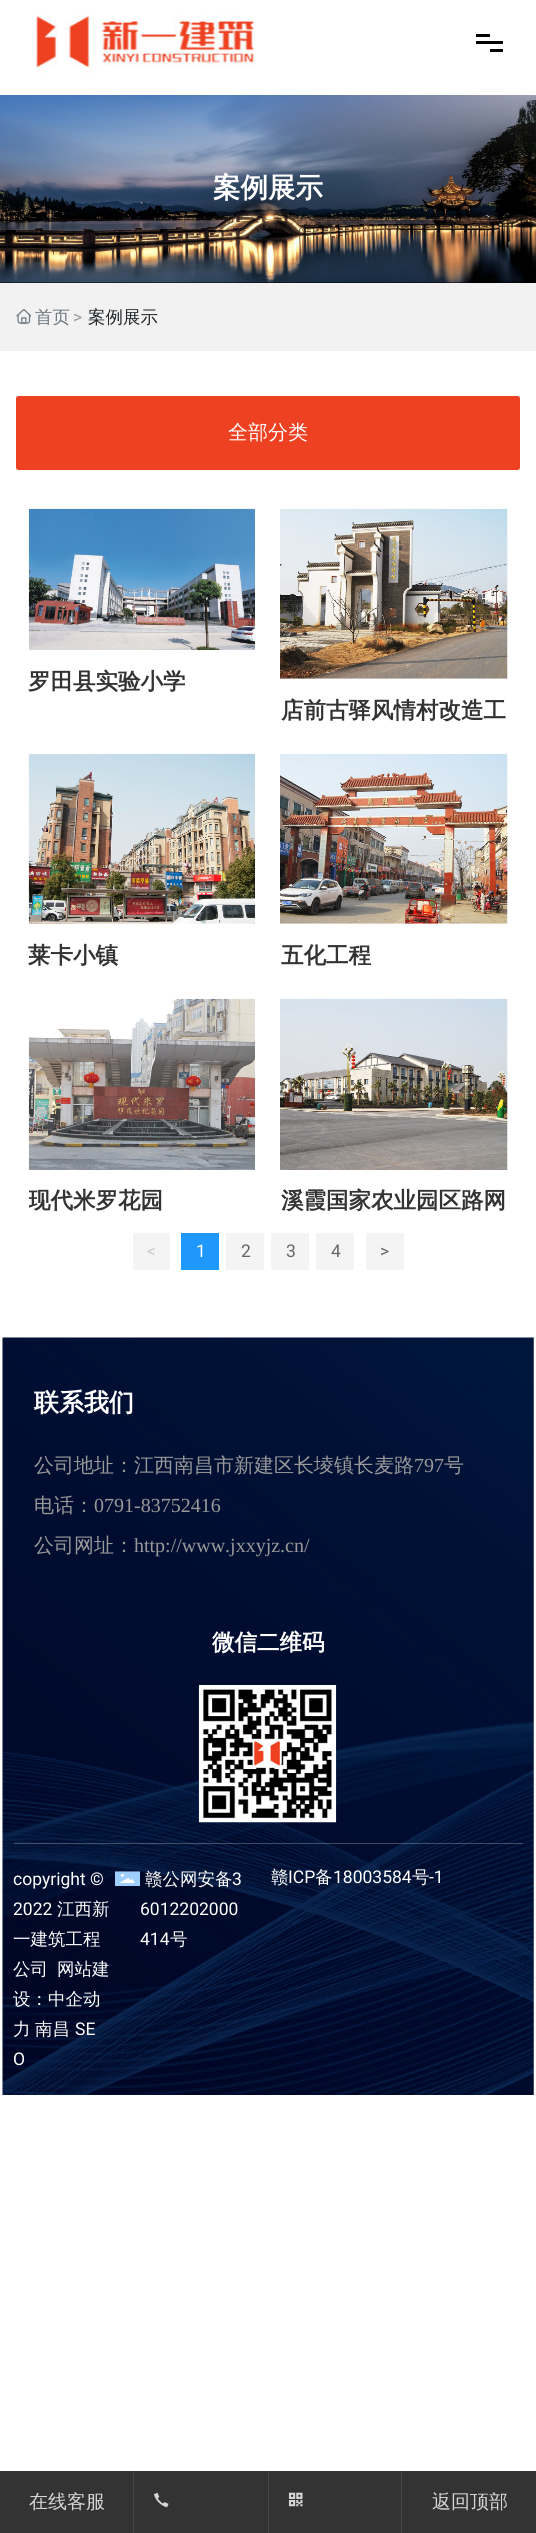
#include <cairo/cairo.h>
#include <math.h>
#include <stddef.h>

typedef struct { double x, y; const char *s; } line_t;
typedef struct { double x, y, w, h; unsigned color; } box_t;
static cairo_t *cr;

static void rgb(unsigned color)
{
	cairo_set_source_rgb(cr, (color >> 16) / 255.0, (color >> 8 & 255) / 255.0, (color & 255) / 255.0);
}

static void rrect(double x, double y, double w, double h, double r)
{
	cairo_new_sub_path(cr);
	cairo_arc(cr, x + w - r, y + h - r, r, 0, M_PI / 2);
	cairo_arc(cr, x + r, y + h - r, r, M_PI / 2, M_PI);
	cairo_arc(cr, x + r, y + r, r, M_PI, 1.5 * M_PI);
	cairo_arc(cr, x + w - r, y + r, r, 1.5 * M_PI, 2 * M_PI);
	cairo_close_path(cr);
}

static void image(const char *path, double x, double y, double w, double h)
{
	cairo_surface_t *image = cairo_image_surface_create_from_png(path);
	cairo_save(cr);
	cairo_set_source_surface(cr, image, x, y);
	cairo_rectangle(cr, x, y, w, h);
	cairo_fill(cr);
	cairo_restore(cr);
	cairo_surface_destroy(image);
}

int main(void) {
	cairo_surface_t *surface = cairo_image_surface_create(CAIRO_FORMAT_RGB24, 536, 2533);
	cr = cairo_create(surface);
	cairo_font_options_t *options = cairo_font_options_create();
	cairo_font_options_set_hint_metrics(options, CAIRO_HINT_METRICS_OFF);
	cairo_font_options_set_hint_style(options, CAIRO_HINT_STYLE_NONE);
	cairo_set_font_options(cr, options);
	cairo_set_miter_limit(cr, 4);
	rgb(0xffffff);
	cairo_paint(cr);
	image("img/1.png", 35, 15, 220, 58);
	{
		static const box_t items[] = {
			{476, 34, 14, 3, 0x000000},
			{476, 41, 27, 3, 0x000000},
			{490, 49, 13, 3, 0x000000},
			{0, 282, 536, 1, 0x000000},
		};
		for (size_t i = 0; i < sizeof items / sizeof *items; i++) {
			rgb(items[i].color);
			cairo_rectangle(cr, items[i].x, items[i].y, items[i].w, items[i].h);
			cairo_fill(cr);
		}
	}
	image("img/2.png", 0, 95, 536, 188);
	rgb(0xf2f2f2);
	cairo_rectangle(cr, 0, 283, 536, 68);
	cairo_fill(cr);
	image("img/3.png", 16, 309, 15, 15);
	rgb(0xee4121);
	rrect(16, 396, 504, 74, 2.5);
	cairo_fill(cr);
	image("img/4.png", 28, 508, 227, 142);
	image("img/5.png", 280, 508, 228, 171);
	image("img/6.png", 28, 753, 227, 171);
	image("img/7.png", 280, 753, 228, 171);
	image("img/8.png", 28, 998, 227, 172);
	image("img/9.png", 280, 998, 228, 172);
	{
		static const box_t items[] = {
			{133, 1233, 37, 37, 0xf4f4f4},
			{181, 1233, 38, 37, 0x1f98fc},
			{226, 1233, 38, 37, 0xf4f4f4},
			{271, 1233, 38, 37, 0xf4f4f4},
			{316, 1233, 38, 37, 0xf4f4f4},
			{366, 1233, 38, 37, 0xf4f4f4},
		};
		for (size_t i = 0; i < sizeof items / sizeof *items; i++) {
			rgb(items[i].color);
			cairo_rectangle(cr, items[i].x, items[i].y, items[i].w, items[i].h);
			cairo_fill(cr);
		}
	}
	image("img/10.png", 2, 1337, 532, 758);
	image("img/11.png", 198, 1685, 139, 138);
	cairo_set_source_rgba(cr, 1, 1, 1, 0.25);
	cairo_rectangle(cr, 14, 1843, 509, 1);
	cairo_fill(cr);
	image("img/12.png", 115, 1871, 25, 15);
	{
		static const box_t items[] = {
			{0, 2471, 536, 62, 0x333333},
			{133, 2471, 1, 62, 0x474747},
			{268, 2471, 1, 62, 0x474747},
		};
		for (size_t i = 0; i < sizeof items / sizeof *items; i++) {
			rgb(items[i].color);
			cairo_rectangle(cr, items[i].x, items[i].y, items[i].w, items[i].h);
			cairo_fill(cr);
		}
	}
	image("img/13.png", 154, 2492, 15, 16);
	cairo_rectangle(cr, 401, 2471, 1, 62);
	cairo_fill(cr);
	image("img/14.png", 288, 2492, 15, 15);
	cairo_select_font_face(cr, "WenQuanYi Zen Hei", CAIRO_FONT_SLANT_NORMAL, CAIRO_FONT_WEIGHT_BOLD);
	cairo_set_font_size(cr, 27.5);
	rgb(0xffffff);
	cairo_move_to(cr, 213, 197);
	cairo_show_text(cr, "案例展示");
	cairo_select_font_face(cr, "WenQuanYi Zen Hei Medium", CAIRO_FONT_SLANT_NORMAL, CAIRO_FONT_WEIGHT_NORMAL);
	cairo_set_font_size(cr, 17.5);
	rgb(0x6c757d);
	cairo_move_to(cr, 35, 323);
	cairo_show_text(cr, "首页");
	cairo_select_font_face(cr, "Roboto", CAIRO_FONT_SLANT_NORMAL, CAIRO_FONT_WEIGHT_NORMAL);
	rgb(0x999999);
	cairo_move_to(cr, 73, 323);
	cairo_show_text(cr, ">");
	cairo_select_font_face(cr, "WenQuanYi Zen Hei Medium", CAIRO_FONT_SLANT_NORMAL, CAIRO_FONT_WEIGHT_NORMAL);
	rgb(0x212529);
	cairo_move_to(cr, 88, 323);
	cairo_show_text(cr, "案例展示");
	cairo_set_font_size(cr, 20);
	rgb(0xffffff);
	cairo_move_to(cr, 228, 439);
	cairo_show_text(cr, "全部分类");
	cairo_select_font_face(cr, "WenQuanYi Zen Hei", CAIRO_FONT_SLANT_NORMAL, CAIRO_FONT_WEIGHT_BOLD);
	cairo_set_font_size(cr, 22.5);
	rgb(0x333333);
	{
		static const line_t items[] = {
			{28, 689, "罗田县实验小学"},
			{281, 718, "店前古驿风情村改造工"},
			{28, 963, "莱卡小镇"},
			{281, 963, "五化工程"},
		};
		for (size_t i = 0; i < sizeof items / sizeof *items; i++) {
			cairo_move_to(cr, items[i].x, items[i].y);
			cairo_show_text(cr, items[i].s);
		}
	}
	cairo_save(cr);
	cairo_rectangle(cr, 29, 1183, 226, 37);
	cairo_clip(cr);
	cairo_move_to(cr, 28, 1208);
	cairo_show_text(cr, "现代米罗花园");
	cairo_restore(cr);
	cairo_move_to(cr, 281, 1208);
	cairo_show_text(cr, "溪霞国家农业园区路网");
	cairo_select_font_face(cr, "Roboto", CAIRO_FONT_SLANT_NORMAL, CAIRO_FONT_WEIGHT_NORMAL);
	cairo_set_font_size(cr, 17.5);
	rgb(0xcccccc);
	cairo_move_to(cr, 147, 1257);
	cairo_show_text(cr, "<");
	rgb(0xffffff);
	cairo_move_to(cr, 196, 1257);
	cairo_show_text(cr, "1");
	rgb(0x666666);
	{
		static const line_t items[] = {
			{241, 1257, "2"},
			{286, 1257, "3"},
			{331, 1257, "4"},
			{380, 1257, ">"},
		};
		for (size_t i = 0; i < sizeof items / sizeof *items; i++) {
			cairo_move_to(cr, items[i].x, items[i].y);
			cairo_show_text(cr, items[i].s);
		}
	}
	cairo_select_font_face(cr, "WenQuanYi Zen Hei", CAIRO_FONT_SLANT_NORMAL, CAIRO_FONT_WEIGHT_BOLD);
	cairo_set_font_size(cr, 25);
	rgb(0xffffff);
	cairo_move_to(cr, 34, 1411);
	cairo_show_text(cr, "联系我们");
	cairo_select_font_face(cr, "WenQuanYi Zen Hei Medium", CAIRO_FONT_SLANT_NORMAL, CAIRO_FONT_WEIGHT_NORMAL);
	cairo_set_font_size(cr, 20);
	rgb(0x999999);
	cairo_move_to(cr, 34, 1472);
	cairo_show_text(cr, "公司地址：江西南昌市新建区长堎镇长麦路");
	cairo_select_font_face(cr, "Liberation Serif", CAIRO_FONT_SLANT_NORMAL, CAIRO_FONT_WEIGHT_NORMAL);
	cairo_move_to(cr, 414, 1472);
	cairo_show_text(cr, "797");
	cairo_select_font_face(cr, "WenQuanYi Zen Hei Medium", CAIRO_FONT_SLANT_NORMAL, CAIRO_FONT_WEIGHT_NORMAL);
	cairo_move_to(cr, 444, 1472);
	cairo_show_text(cr, "号");
	cairo_move_to(cr, 34, 1512);
	cairo_show_text(cr, "电话：");
	cairo_select_font_face(cr, "Liberation Serif", CAIRO_FONT_SLANT_NORMAL, CAIRO_FONT_WEIGHT_NORMAL);
	cairo_move_to(cr, 94, 1512);
	cairo_show_text(cr, "0791-83752416");
	cairo_select_font_face(cr, "WenQuanYi Zen Hei Medium", CAIRO_FONT_SLANT_NORMAL, CAIRO_FONT_WEIGHT_NORMAL);
	cairo_move_to(cr, 34, 1552);
	cairo_show_text(cr, "公司网址：");
	cairo_select_font_face(cr, "Liberation Serif", CAIRO_FONT_SLANT_NORMAL, CAIRO_FONT_WEIGHT_NORMAL);
	cairo_move_to(cr, 134, 1552);
	cairo_show_text(cr, "http://www.jxxyjz.cn/");
	cairo_select_font_face(cr, "WenQuanYi Zen Hei", CAIRO_FONT_SLANT_NORMAL, CAIRO_FONT_WEIGHT_BOLD);
	cairo_set_font_size(cr, 22.5);
	rgb(0xffffff);
	cairo_move_to(cr, 212, 1650);
	cairo_show_text(cr, "微信二维码");
	cairo_select_font_face(cr, "Roboto", CAIRO_FONT_SLANT_NORMAL, CAIRO_FONT_WEIGHT_NORMAL);
	cairo_set_font_size(cr, 17.5);
	cairo_move_to(cr, 13, 1885);
	cairo_show_text(cr, "copyright ©");
	cairo_move_to(cr, 13, 1915);
	cairo_show_text(cr, "2022");
	cairo_select_font_face(cr, "WenQuanYi Zen Hei Medium", CAIRO_FONT_SLANT_NORMAL, CAIRO_FONT_WEIGHT_NORMAL);
	{
		static const line_t items[] = {
			{57, 1915, "江西新"},
			{13, 1945, "一建筑工程"},
			{13, 1975, "公司"},
			{57, 1975, "网站建"},
			{13, 2005, "设：中企动"},
			{13, 2035, "力"},
			{35, 2035, "南昌"},
		};
		for (size_t i = 0; i < sizeof items / sizeof *items; i++) {
			cairo_move_to(cr, items[i].x, items[i].y);
			cairo_show_text(cr, items[i].s);
		}
	}
	cairo_select_font_face(cr, "Roboto", CAIRO_FONT_SLANT_NORMAL, CAIRO_FONT_WEIGHT_NORMAL);
	cairo_move_to(cr, 75, 2035);
	cairo_show_text(cr, "SE");
	cairo_move_to(cr, 13, 2065);
	cairo_show_text(cr, "O");
	cairo_select_font_face(cr, "WenQuanYi Zen Hei Medium", CAIRO_FONT_SLANT_NORMAL, CAIRO_FONT_WEIGHT_NORMAL);
	cairo_move_to(cr, 145, 1885);
	cairo_show_text(cr, "赣公网安备");
	cairo_select_font_face(cr, "Roboto", CAIRO_FONT_SLANT_NORMAL, CAIRO_FONT_WEIGHT_NORMAL);
	{
		static const line_t items[] = {
			{232, 1885, "3"},
			{140, 1915, "6012202000"},
			{140, 1945, "414"},
		};
		for (size_t i = 0; i < sizeof items / sizeof *items; i++) {
			cairo_move_to(cr, items[i].x, items[i].y);
			cairo_show_text(cr, items[i].s);
		}
	}
	cairo_select_font_face(cr, "WenQuanYi Zen Hei Medium", CAIRO_FONT_SLANT_NORMAL, CAIRO_FONT_WEIGHT_NORMAL);
	cairo_move_to(cr, 170, 1945);
	cairo_show_text(cr, "号");
	cairo_move_to(cr, 271, 1883);
	cairo_show_text(cr, "赣");
	cairo_select_font_face(cr, "Roboto", CAIRO_FONT_SLANT_NORMAL, CAIRO_FONT_WEIGHT_NORMAL);
	cairo_move_to(cr, 288, 1883);
	cairo_show_text(cr, "ICP");
	cairo_select_font_face(cr, "WenQuanYi Zen Hei Medium", CAIRO_FONT_SLANT_NORMAL, CAIRO_FONT_WEIGHT_NORMAL);
	cairo_move_to(cr, 315, 1883);
	cairo_show_text(cr, "备");
	cairo_select_font_face(cr, "Roboto", CAIRO_FONT_SLANT_NORMAL, CAIRO_FONT_WEIGHT_NORMAL);
	cairo_move_to(cr, 333, 1883);
	cairo_show_text(cr, "18003584");
	cairo_select_font_face(cr, "WenQuanYi Zen Hei Medium", CAIRO_FONT_SLANT_NORMAL, CAIRO_FONT_WEIGHT_NORMAL);
	cairo_move_to(cr, 412, 1883);
	cairo_show_text(cr, "号");
	cairo_select_font_face(cr, "Roboto", CAIRO_FONT_SLANT_NORMAL, CAIRO_FONT_WEIGHT_NORMAL);
	cairo_move_to(cr, 429, 1883);
	cairo_show_text(cr, "-1");
	cairo_select_font_face(cr, "WenQuanYi Zen Hei Medium", CAIRO_FONT_SLANT_NORMAL, CAIRO_FONT_WEIGHT_NORMAL);
	cairo_set_font_size(cr, 19);
	rgb(0xd6d6d6);
	cairo_move_to(cr, 29, 2508);
	cairo_show_text(cr, "在线客服");
	cairo_move_to(cr, 432, 2508);
	cairo_show_text(cr, "返回顶部");
	cairo_surface_write_to_png(surface, "page.png");
	cairo_font_options_destroy(options);
	cairo_destroy(cr);
	cairo_surface_destroy(surface);
	return 0;
}
